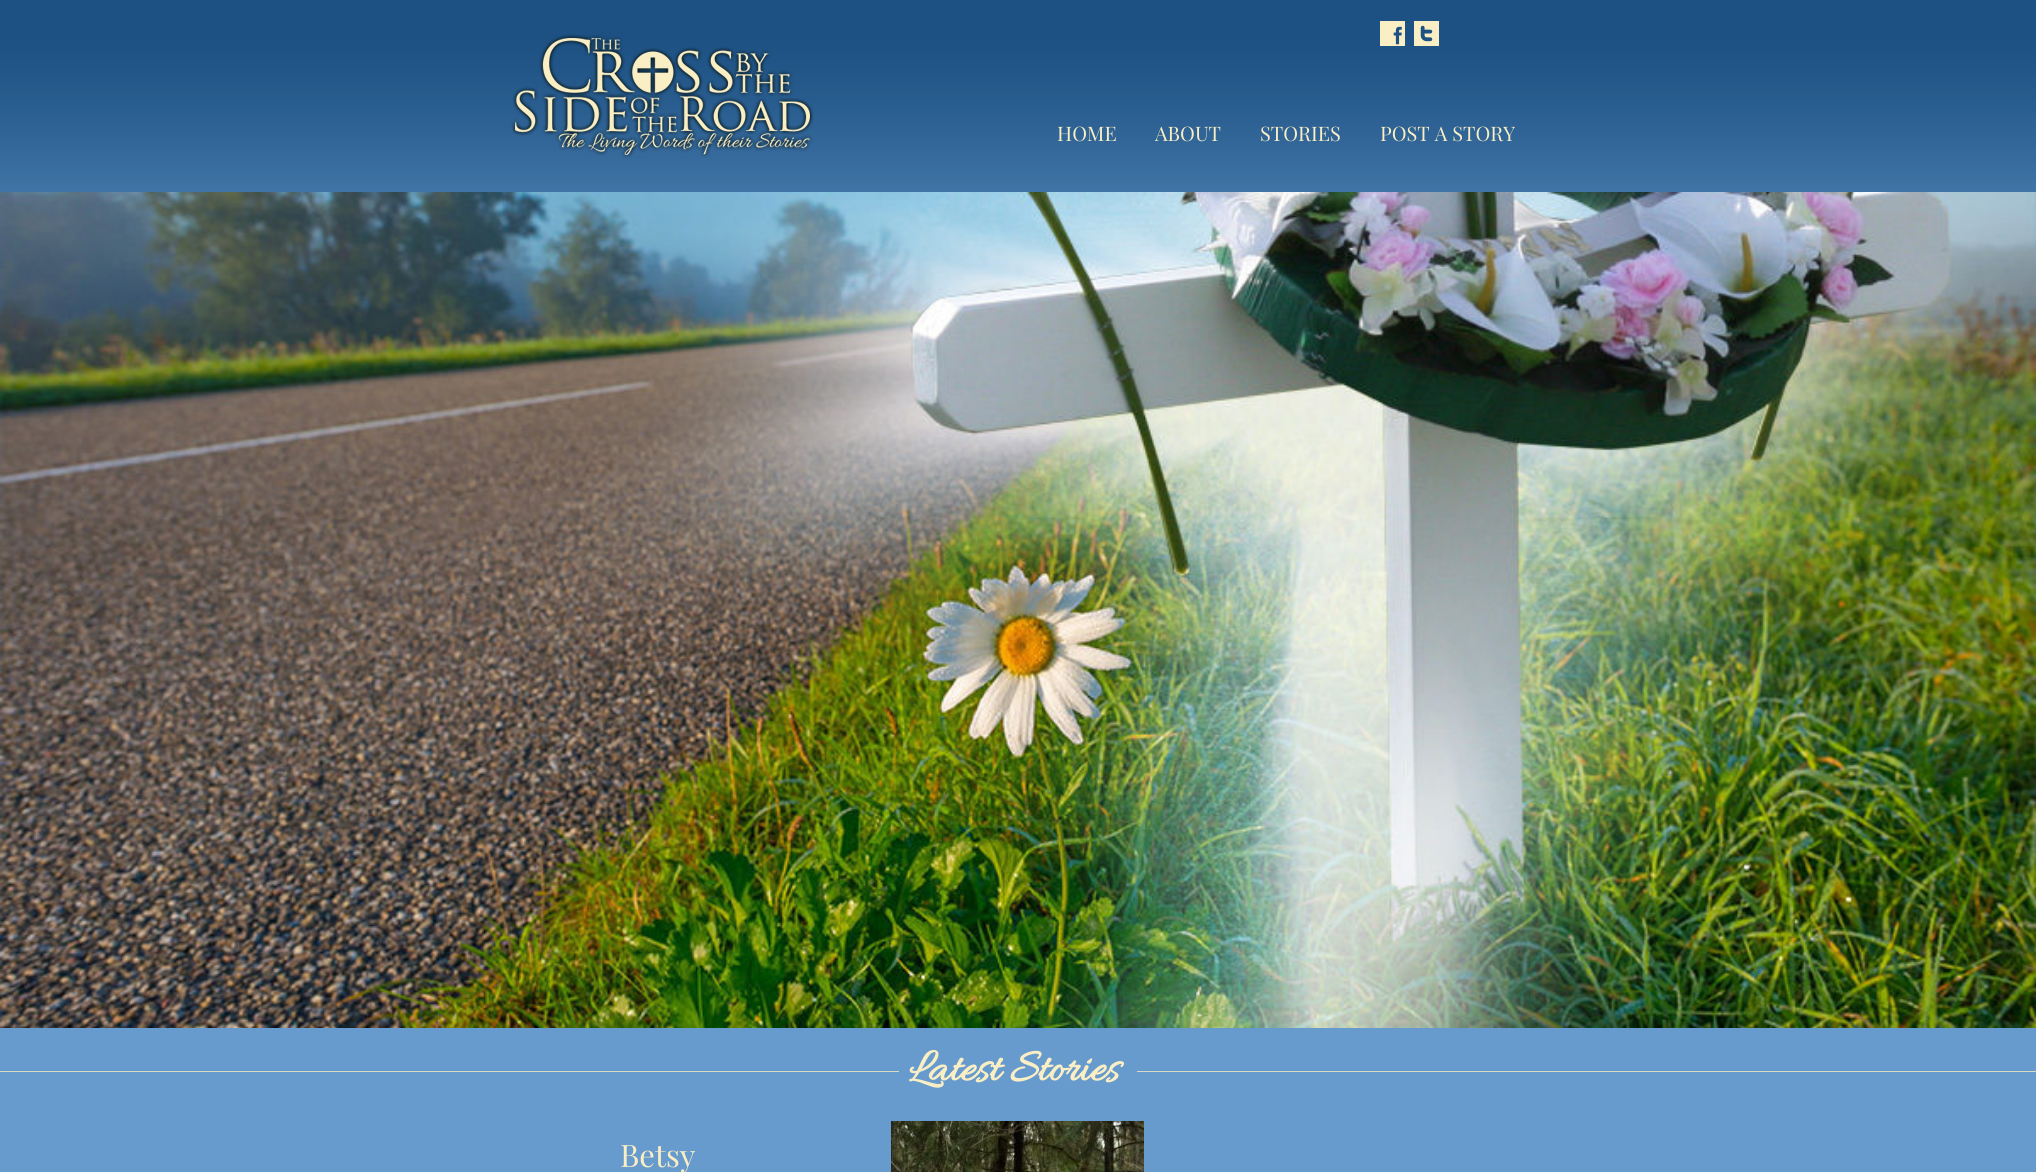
#include <cairo/cairo.h>
#include <math.h>
#include <stddef.h>

typedef struct { double x, y; const char *s; } line_t;
static cairo_t *cr;

static void rgb(unsigned color)
{
	cairo_set_source_rgb(cr, (color >> 16) / 255.0, (color >> 8 & 255) / 255.0, (color & 255) / 255.0);
}

static void image(const char *path, double x, double y, double w, double h)
{
	cairo_surface_t *image = cairo_image_surface_create_from_png(path);
	cairo_save(cr);
	cairo_set_source_surface(cr, image, x, y);
	cairo_rectangle(cr, x, y, w, h);
	cairo_fill(cr);
	cairo_restore(cr);
	cairo_surface_destroy(image);
}

int main(void) {
	cairo_surface_t *surface = cairo_image_surface_create(CAIRO_FORMAT_RGB24, 2036, 1172);
	cr = cairo_create(surface);
	cairo_font_options_t *options = cairo_font_options_create();
	cairo_font_options_set_hint_metrics(options, CAIRO_HINT_METRICS_OFF);
	cairo_font_options_set_hint_style(options, CAIRO_HINT_STYLE_NONE);
	cairo_set_font_options(cr, options);
	cairo_set_miter_limit(cr, 4);
	rgb(0x679bcd);
	cairo_paint(cr);
	image("img/1.png", 0, 0, 2036, 192);
	image("img/2.png", 511, 34, 303, 124);
	image("img/3.png", 1380, 21, 25, 25);
	image("img/4.png", 1414, 21, 25, 25);
	image("img/5.png", 0, 192, 2036, 836);
	rgb(0xd9dac6);
	cairo_rectangle(cr, 0, 1071, 2036, 1);
	cairo_fill(cr);
	rgb(0x679bcd);
	cairo_rectangle(cr, 899, 1071, 238, 1);
	cairo_fill(cr);
	image("img/6.png", 891, 1121, 253, 51);
	cairo_select_font_face(cr, "Playfair Display SC", CAIRO_FONT_SLANT_NORMAL, CAIRO_FONT_WEIGHT_NORMAL);
	cairo_set_font_size(cr, 20);
	rgb(0xfaeec4);
	{
		static const line_t items[] = {
			{1057, 141, "HOME"},
			{1155, 141, "ABOUT"},
			{1260, 141, "STORIES"},
			{1380, 141, "POST A STORY"},
		};
		for (size_t i = 0; i < sizeof items / sizeof *items; i++) {
			cairo_move_to(cr, items[i].x, items[i].y);
			cairo_show_text(cr, items[i].s);
		}
	}
	cairo_select_font_face(cr, "Allura", CAIRO_FONT_SLANT_NORMAL, CAIRO_FONT_WEIGHT_BOLD);
	cairo_set_font_size(cr, 47);
	cairo_move_to(cr, 909, 1080);
	cairo_show_text(cr, "Latest Stories");
	cairo_select_font_face(cr, "Playfair Display", CAIRO_FONT_SLANT_NORMAL, CAIRO_FONT_WEIGHT_NORMAL);
	cairo_set_font_size(cr, 31);
	cairo_move_to(cr, 620, 1167);
	cairo_show_text(cr, "Betsy");
	cairo_surface_write_to_png(surface, "page.png");
	cairo_font_options_destroy(options);
	cairo_destroy(cr);
	cairo_surface_destroy(surface);
	return 0;
}
